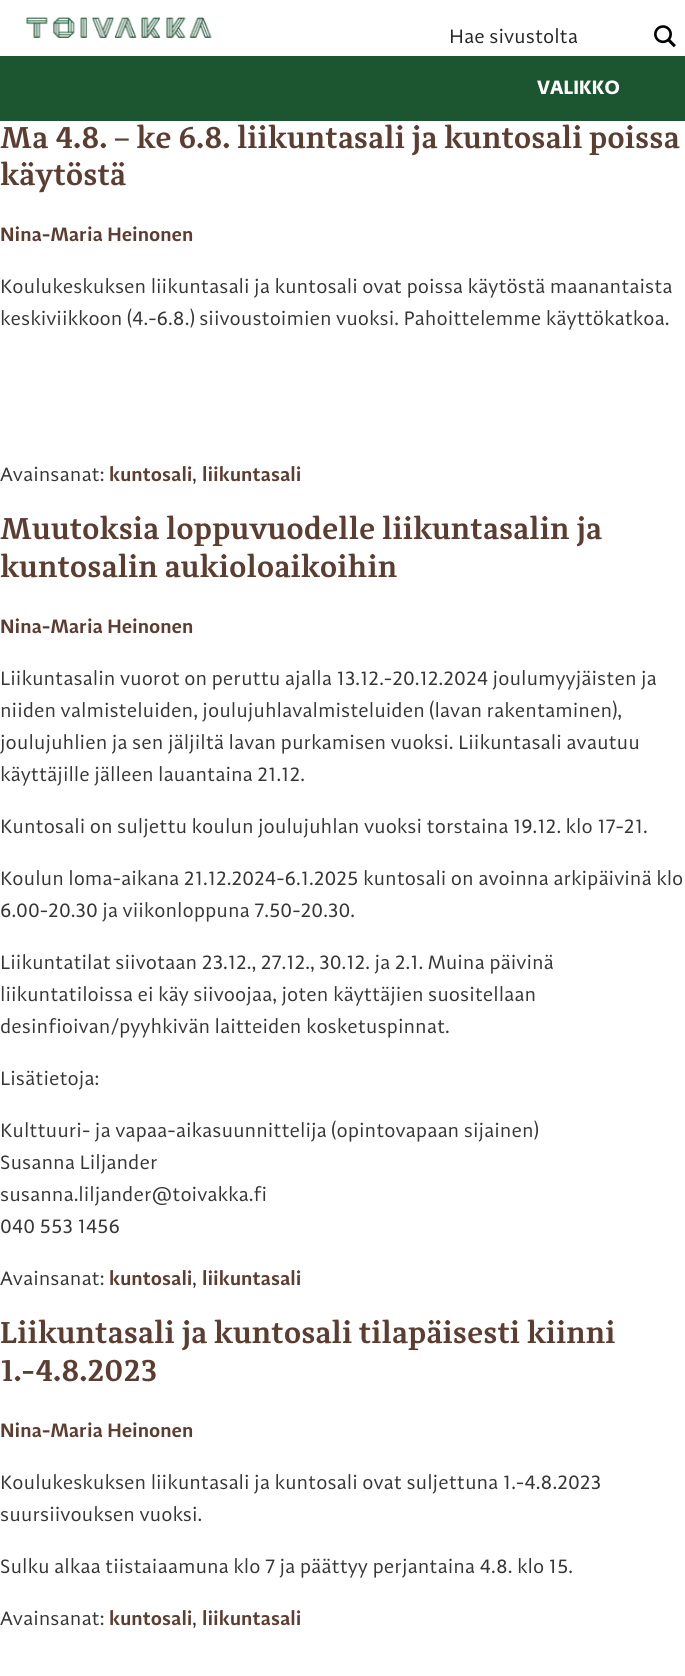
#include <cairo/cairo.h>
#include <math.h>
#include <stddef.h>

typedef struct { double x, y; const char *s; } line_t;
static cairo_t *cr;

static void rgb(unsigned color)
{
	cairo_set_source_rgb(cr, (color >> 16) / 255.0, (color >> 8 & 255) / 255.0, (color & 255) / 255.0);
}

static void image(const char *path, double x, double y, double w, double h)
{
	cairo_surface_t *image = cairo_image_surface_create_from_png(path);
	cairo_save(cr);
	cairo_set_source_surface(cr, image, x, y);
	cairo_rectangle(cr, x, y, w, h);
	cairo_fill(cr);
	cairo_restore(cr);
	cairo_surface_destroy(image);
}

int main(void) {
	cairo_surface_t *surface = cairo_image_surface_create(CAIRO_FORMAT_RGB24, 685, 1676);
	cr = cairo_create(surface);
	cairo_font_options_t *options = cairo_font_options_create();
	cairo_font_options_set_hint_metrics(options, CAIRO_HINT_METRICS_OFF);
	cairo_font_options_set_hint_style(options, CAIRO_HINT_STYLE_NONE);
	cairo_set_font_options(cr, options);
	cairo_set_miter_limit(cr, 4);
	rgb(0xffffff);
	cairo_paint(cr);
	image("img/1.png", 26, 17, 186, 21);
	image("img/2.png", 654, 25, 22, 23);
	rgb(0x1c5631);
	cairo_rectangle(cr, 0, 56, 685, 65);
	cairo_fill(cr);
	cairo_select_font_face(cr, "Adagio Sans", CAIRO_FONT_SLANT_NORMAL, CAIRO_FONT_WEIGHT_NORMAL);
	cairo_set_font_size(cr, 20);
	rgb(0x262626);
	cairo_move_to(cr, 449, 43);
	cairo_show_text(cr, "Hae sivustolta");
	cairo_select_font_face(cr, "Adagio Sans", CAIRO_FONT_SLANT_NORMAL, CAIRO_FONT_WEIGHT_BOLD);
	rgb(0xffffff);
	cairo_move_to(cr, 537, 94);
	cairo_show_text(cr, "VALIKKO");
	cairo_select_font_face(cr, "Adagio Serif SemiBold", CAIRO_FONT_SLANT_NORMAL, CAIRO_FONT_WEIGHT_NORMAL);
	cairo_set_font_size(cr, 31.25);
	rgb(0x5c3d31);
	cairo_move_to(cr, 0, 148);
	cairo_show_text(cr, "Ma 4.8. – ke 6.8. liikuntasali ja kuntosali poissa");
	cairo_move_to(cr, 0, 185);
	cairo_show_text(cr, "käytöstä");
	cairo_select_font_face(cr, "Adagio Sans SemiBold", CAIRO_FONT_SLANT_NORMAL, CAIRO_FONT_WEIGHT_NORMAL);
	cairo_set_font_size(cr, 20);
	cairo_move_to(cr, 0, 241);
	cairo_show_text(cr, "Nina-Maria Heinonen");
	cairo_select_font_face(cr, "Adagio Sans", CAIRO_FONT_SLANT_NORMAL, CAIRO_FONT_WEIGHT_NORMAL);
	rgb(0x363636);
	{
		static const line_t items[] = {
			{0, 293, "Koulukeskuksen liikuntasali ja kuntosali ovat poissa käytöstä maanantaista"},
			{0, 325, "keskiviikkoon (4.-6.8.) siivoustoimien vuoksi. Pahoittelemme käyttökatkoa."},
			{0, 481, "Avainsanat:"},
		};
		for (size_t i = 0; i < sizeof items / sizeof *items; i++) {
			cairo_move_to(cr, items[i].x, items[i].y);
			cairo_show_text(cr, items[i].s);
		}
	}
	cairo_select_font_face(cr, "Adagio Sans SemiBold", CAIRO_FONT_SLANT_NORMAL, CAIRO_FONT_WEIGHT_NORMAL);
	rgb(0x5c3d31);
	cairo_move_to(cr, 109, 481);
	cairo_show_text(cr, "kuntosali");
	cairo_select_font_face(cr, "Adagio Sans", CAIRO_FONT_SLANT_NORMAL, CAIRO_FONT_WEIGHT_NORMAL);
	rgb(0x363636);
	cairo_move_to(cr, 192, 481);
	cairo_show_text(cr, ",");
	cairo_select_font_face(cr, "Adagio Sans SemiBold", CAIRO_FONT_SLANT_NORMAL, CAIRO_FONT_WEIGHT_NORMAL);
	rgb(0x5c3d31);
	cairo_move_to(cr, 202, 481);
	cairo_show_text(cr, "liikuntasali");
	cairo_select_font_face(cr, "Adagio Serif SemiBold", CAIRO_FONT_SLANT_NORMAL, CAIRO_FONT_WEIGHT_NORMAL);
	cairo_set_font_size(cr, 31.25);
	cairo_move_to(cr, 0, 539);
	cairo_show_text(cr, "Muutoksia loppuvuodelle liikuntasalin ja");
	cairo_move_to(cr, 0, 577);
	cairo_show_text(cr, "kuntosalin aukioloaikoihin");
	cairo_select_font_face(cr, "Adagio Sans SemiBold", CAIRO_FONT_SLANT_NORMAL, CAIRO_FONT_WEIGHT_NORMAL);
	cairo_set_font_size(cr, 20);
	cairo_move_to(cr, 0, 633);
	cairo_show_text(cr, "Nina-Maria Heinonen");
	cairo_select_font_face(cr, "Adagio Sans", CAIRO_FONT_SLANT_NORMAL, CAIRO_FONT_WEIGHT_NORMAL);
	rgb(0x363636);
	{
		static const line_t items[] = {
			{0, 685, "Liikuntasalin vuorot on peruttu ajalla 13.12.-20.12.2024 joulumyyjäisten ja"},
			{0, 717, "niiden valmisteluiden, joulujuhlavalmisteluiden (lavan rakentaminen),"},
			{0, 749, "joulujuhlien ja sen jäljiltä lavan purkamisen vuoksi. Liikuntasali avautuu"},
			{0, 781, "käyttäjille jälleen lauantaina 21.12."},
			{0, 833, "Kuntosali on suljettu koulun joulujuhlan vuoksi torstaina 19.12. klo 17-21."},
			{0, 885, "Koulun loma-aikana 21.12.2024-6.1.2025 kuntosali on avoinna arkipäivinä klo"},
			{0, 917, "6.00-20.30 ja viikonloppuna 7.50-20.30."},
			{0, 969, "Liikuntatilat siivotaan 23.12., 27.12., 30.12. ja 2.1. Muina päivinä"},
			{0, 1001, "liikuntatiloissa ei käy siivoojaa, joten käyttäjien suositellaan"},
			{0, 1033, "desinfioivan/pyyhkivän laitteiden kosketuspinnat."},
			{0, 1085, "Lisätietoja:"},
			{0, 1137, "Kulttuuri- ja vapaa-aikasuunnittelija (opintovapaan sijainen)"},
			{0, 1169, "Susanna Liljander"},
			{0, 1201, "susanna.liljander@toivakka.fi"},
			{0, 1233, "040 553 1456"},
			{0, 1285, "Avainsanat:"},
		};
		for (size_t i = 0; i < sizeof items / sizeof *items; i++) {
			cairo_move_to(cr, items[i].x, items[i].y);
			cairo_show_text(cr, items[i].s);
		}
	}
	cairo_select_font_face(cr, "Adagio Sans SemiBold", CAIRO_FONT_SLANT_NORMAL, CAIRO_FONT_WEIGHT_NORMAL);
	rgb(0x5c3d31);
	cairo_move_to(cr, 109, 1285);
	cairo_show_text(cr, "kuntosali");
	cairo_select_font_face(cr, "Adagio Sans", CAIRO_FONT_SLANT_NORMAL, CAIRO_FONT_WEIGHT_NORMAL);
	rgb(0x363636);
	cairo_move_to(cr, 192, 1285);
	cairo_show_text(cr, ",");
	cairo_select_font_face(cr, "Adagio Sans SemiBold", CAIRO_FONT_SLANT_NORMAL, CAIRO_FONT_WEIGHT_NORMAL);
	rgb(0x5c3d31);
	cairo_move_to(cr, 202, 1285);
	cairo_show_text(cr, "liikuntasali");
	cairo_select_font_face(cr, "Adagio Serif SemiBold", CAIRO_FONT_SLANT_NORMAL, CAIRO_FONT_WEIGHT_NORMAL);
	cairo_set_font_size(cr, 31.25);
	cairo_move_to(cr, 0, 1343);
	cairo_show_text(cr, "Liikuntasali ja kuntosali tilapäisesti kiinni");
	cairo_move_to(cr, 0, 1381);
	cairo_show_text(cr, "1.-4.8.2023");
	cairo_select_font_face(cr, "Adagio Sans SemiBold", CAIRO_FONT_SLANT_NORMAL, CAIRO_FONT_WEIGHT_NORMAL);
	cairo_set_font_size(cr, 20);
	cairo_move_to(cr, 0, 1437);
	cairo_show_text(cr, "Nina-Maria Heinonen");
	cairo_select_font_face(cr, "Adagio Sans", CAIRO_FONT_SLANT_NORMAL, CAIRO_FONT_WEIGHT_NORMAL);
	rgb(0x363636);
	{
		static const line_t items[] = {
			{0, 1489, "Koulukeskuksen liikuntasali ja kuntosali ovat suljettuna 1.-4.8.2023"},
			{0, 1521, "suursiivouksen vuoksi."},
			{0, 1573, "Sulku alkaa tiistaiaamuna klo 7 ja päättyy perjantaina 4.8. klo 15."},
			{0, 1625, "Avainsanat:"},
		};
		for (size_t i = 0; i < sizeof items / sizeof *items; i++) {
			cairo_move_to(cr, items[i].x, items[i].y);
			cairo_show_text(cr, items[i].s);
		}
	}
	cairo_select_font_face(cr, "Adagio Sans SemiBold", CAIRO_FONT_SLANT_NORMAL, CAIRO_FONT_WEIGHT_NORMAL);
	rgb(0x5c3d31);
	cairo_move_to(cr, 109, 1625);
	cairo_show_text(cr, "kuntosali");
	cairo_select_font_face(cr, "Adagio Sans", CAIRO_FONT_SLANT_NORMAL, CAIRO_FONT_WEIGHT_NORMAL);
	rgb(0x363636);
	cairo_move_to(cr, 192, 1625);
	cairo_show_text(cr, ",");
	cairo_select_font_face(cr, "Adagio Sans SemiBold", CAIRO_FONT_SLANT_NORMAL, CAIRO_FONT_WEIGHT_NORMAL);
	rgb(0x5c3d31);
	cairo_move_to(cr, 202, 1625);
	cairo_show_text(cr, "liikuntasali");
	cairo_surface_write_to_png(surface, "page.png");
	cairo_font_options_destroy(options);
	cairo_destroy(cr);
	cairo_surface_destroy(surface);
	return 0;
}
